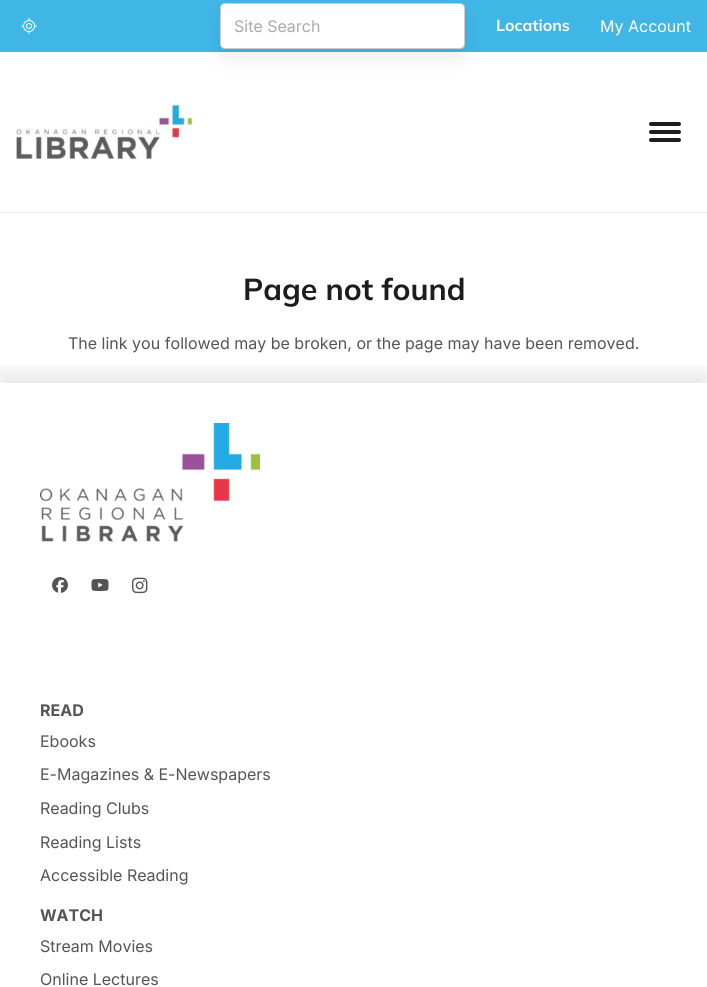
#include <cairo/cairo.h>
#include <math.h>
#include <stddef.h>

typedef struct { double x, y; const char *s; } line_t;
static cairo_t *cr;

static void rgb(unsigned color)
{
	cairo_set_source_rgb(cr, (color >> 16) / 255.0, (color >> 8 & 255) / 255.0, (color & 255) / 255.0);
}

static void rrect(double x, double y, double w, double h, double r)
{
	cairo_new_sub_path(cr);
	cairo_arc(cr, x + w - r, y + h - r, r, 0, M_PI / 2);
	cairo_arc(cr, x + r, y + h - r, r, M_PI / 2, M_PI);
	cairo_arc(cr, x + r, y + r, r, M_PI, 1.5 * M_PI);
	cairo_arc(cr, x + w - r, y + r, r, 1.5 * M_PI, 2 * M_PI);
	cairo_close_path(cr);
}

static void soft_shadow(double x, double y, double w, double h, double r, double blur, double alpha)
{
	cairo_push_group_with_content(cr, CAIRO_CONTENT_ALPHA);
	cairo_set_operator(cr, CAIRO_OPERATOR_SOURCE);
	for (int i = 15; i >= -15 && fmin(w, h) + blur * i / 3 > 0; i -= 2) {
		double e = blur * i / 6;
		cairo_set_source_rgba(cr, 0, 0, 0, alpha * erfc((i - 1) / 8.5) / 2);
		rrect(x - e, y - e, w + 2 * e, h + 2 * e, fmax(0, fmin(r + e + blur * .6, fmin(w, h) / 2 + e)));
		cairo_fill(cr);
	}
	cairo_pattern_t *soft = cairo_pop_group(cr);
	cairo_mask(cr, soft);
	cairo_pattern_destroy(soft);
}

static void image(const char *path, double x, double y, double w, double h)
{
	cairo_surface_t *image = cairo_image_surface_create_from_png(path);
	cairo_save(cr);
	cairo_set_source_surface(cr, image, x, y);
	cairo_rectangle(cr, x, y, w, h);
	cairo_fill(cr);
	cairo_restore(cr);
	cairo_surface_destroy(image);
}

int main(void) {
	cairo_surface_t *surface = cairo_image_surface_create(CAIRO_FORMAT_RGB24, 707, 987);
	cr = cairo_create(surface);
	cairo_font_options_t *options = cairo_font_options_create();
	cairo_font_options_set_hint_metrics(options, CAIRO_HINT_METRICS_OFF);
	cairo_font_options_set_hint_style(options, CAIRO_HINT_STYLE_NONE);
	cairo_set_font_options(cr, options);
	cairo_set_miter_limit(cr, 4);
	rgb(0xffffff);
	cairo_paint(cr);
	rgb(0x40b6e7);
	cairo_rectangle(cr, 0, 0, 707, 52);
	cairo_fill(cr);
	image("img/1.png", 21, 18, 16, 16);
	rgb(0x000000);
	soft_shadow(220, 13, 245, 46, 5, 10, 0.07);
	rgb(0xffffff);
	rrect(220.5, 3.5, 244, 45, 4.5);
	cairo_fill_preserve(cr);
	rgb(0xcccccc);
	cairo_set_line_width(cr, 1);
	cairo_stroke(cr);
	rgb(0xebebeb);
	cairo_rectangle(cr, 0, 212, 707, 1);
	cairo_fill(cr);
	image("img/2.png", 16, 104, 177, 55);
	rgb(0x1d1d1f);
	rrect(649, 122, 32, 4, 2);
	cairo_fill(cr);
	rrect(649, 130, 32, 4, 2);
	cairo_fill(cr);
	rrect(649, 138, 32, 4, 2);
	cairo_fill(cr);
	cairo_save(cr);
	cairo_rectangle(cr, 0, 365, 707, 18);
	cairo_clip(cr);
	rgb(0x000000);
	soft_shadow(0, 373, 707, 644, 0, 10, 0.1);
	cairo_restore(cr);
	image("img/3.png", 40, 423, 220, 119);
	image("img/4.png", 52, 577, 16, 16);
	image("img/5.png", 91, 579, 18, 12);
	image("img/6.png", 132, 577, 16, 17);
	cairo_select_font_face(cr, "Inter", CAIRO_FONT_SLANT_NORMAL, CAIRO_FONT_WEIGHT_NORMAL);
	cairo_set_font_size(cr, 16);
	rgb(0xaaaaab);
	cairo_move_to(cr, 234, 32);
	cairo_show_text(cr, "Site Search");
	cairo_select_font_face(cr, "Mulish ExtraLight", CAIRO_FONT_SLANT_NORMAL, CAIRO_FONT_WEIGHT_NORMAL);
	rgb(0xffffff);
	cairo_move_to(cr, 496, 31);
	cairo_show_text(cr, "Locations");
	cairo_select_font_face(cr, "Inter", CAIRO_FONT_SLANT_NORMAL, CAIRO_FONT_WEIGHT_NORMAL);
	cairo_move_to(cr, 600, 32);
	cairo_show_text(cr, "My Account");
	cairo_select_font_face(cr, "Mulish ExtraLight", CAIRO_FONT_SLANT_NORMAL, CAIRO_FONT_WEIGHT_NORMAL);
	cairo_set_font_size(cr, 30.25);
	rgb(0x1d1d1f);
	cairo_move_to(cr, 243, 300);
	cairo_show_text(cr, "Page not found");
	cairo_select_font_face(cr, "Inter", CAIRO_FONT_SLANT_NORMAL, CAIRO_FONT_WEIGHT_NORMAL);
	cairo_set_font_size(cr, 16);
	rgb(0x545456);
	cairo_move_to(cr, 68, 349);
	cairo_show_text(cr, "The link you followed may be broken, or the page may have been removed.");
	cairo_select_font_face(cr, "Inter", CAIRO_FONT_SLANT_NORMAL, CAIRO_FONT_WEIGHT_BOLD);
	cairo_move_to(cr, 40, 716);
	cairo_show_text(cr, "READ");
	cairo_select_font_face(cr, "Inter", CAIRO_FONT_SLANT_NORMAL, CAIRO_FONT_WEIGHT_NORMAL);
	{
		static const line_t items[] = {
			{40, 747, "Ebooks"},
			{40, 780, "E-Magazines & E-Newspapers"},
			{40, 814, "Reading Clubs"},
			{40, 848, "Reading Lists"},
			{40, 881, "Accessible Reading"},
		};
		for (size_t i = 0; i < sizeof items / sizeof *items; i++) {
			cairo_move_to(cr, items[i].x, items[i].y);
			cairo_show_text(cr, items[i].s);
		}
	}
	cairo_select_font_face(cr, "Inter", CAIRO_FONT_SLANT_NORMAL, CAIRO_FONT_WEIGHT_BOLD);
	cairo_move_to(cr, 40, 921);
	cairo_show_text(cr, "WATCH");
	cairo_select_font_face(cr, "Inter", CAIRO_FONT_SLANT_NORMAL, CAIRO_FONT_WEIGHT_NORMAL);
	cairo_move_to(cr, 40, 952);
	cairo_show_text(cr, "Stream Movies");
	cairo_move_to(cr, 40, 985);
	cairo_show_text(cr, "Online Lectures");
	cairo_surface_write_to_png(surface, "page.png");
	cairo_font_options_destroy(options);
	cairo_destroy(cr);
	cairo_surface_destroy(surface);
	return 0;
}
